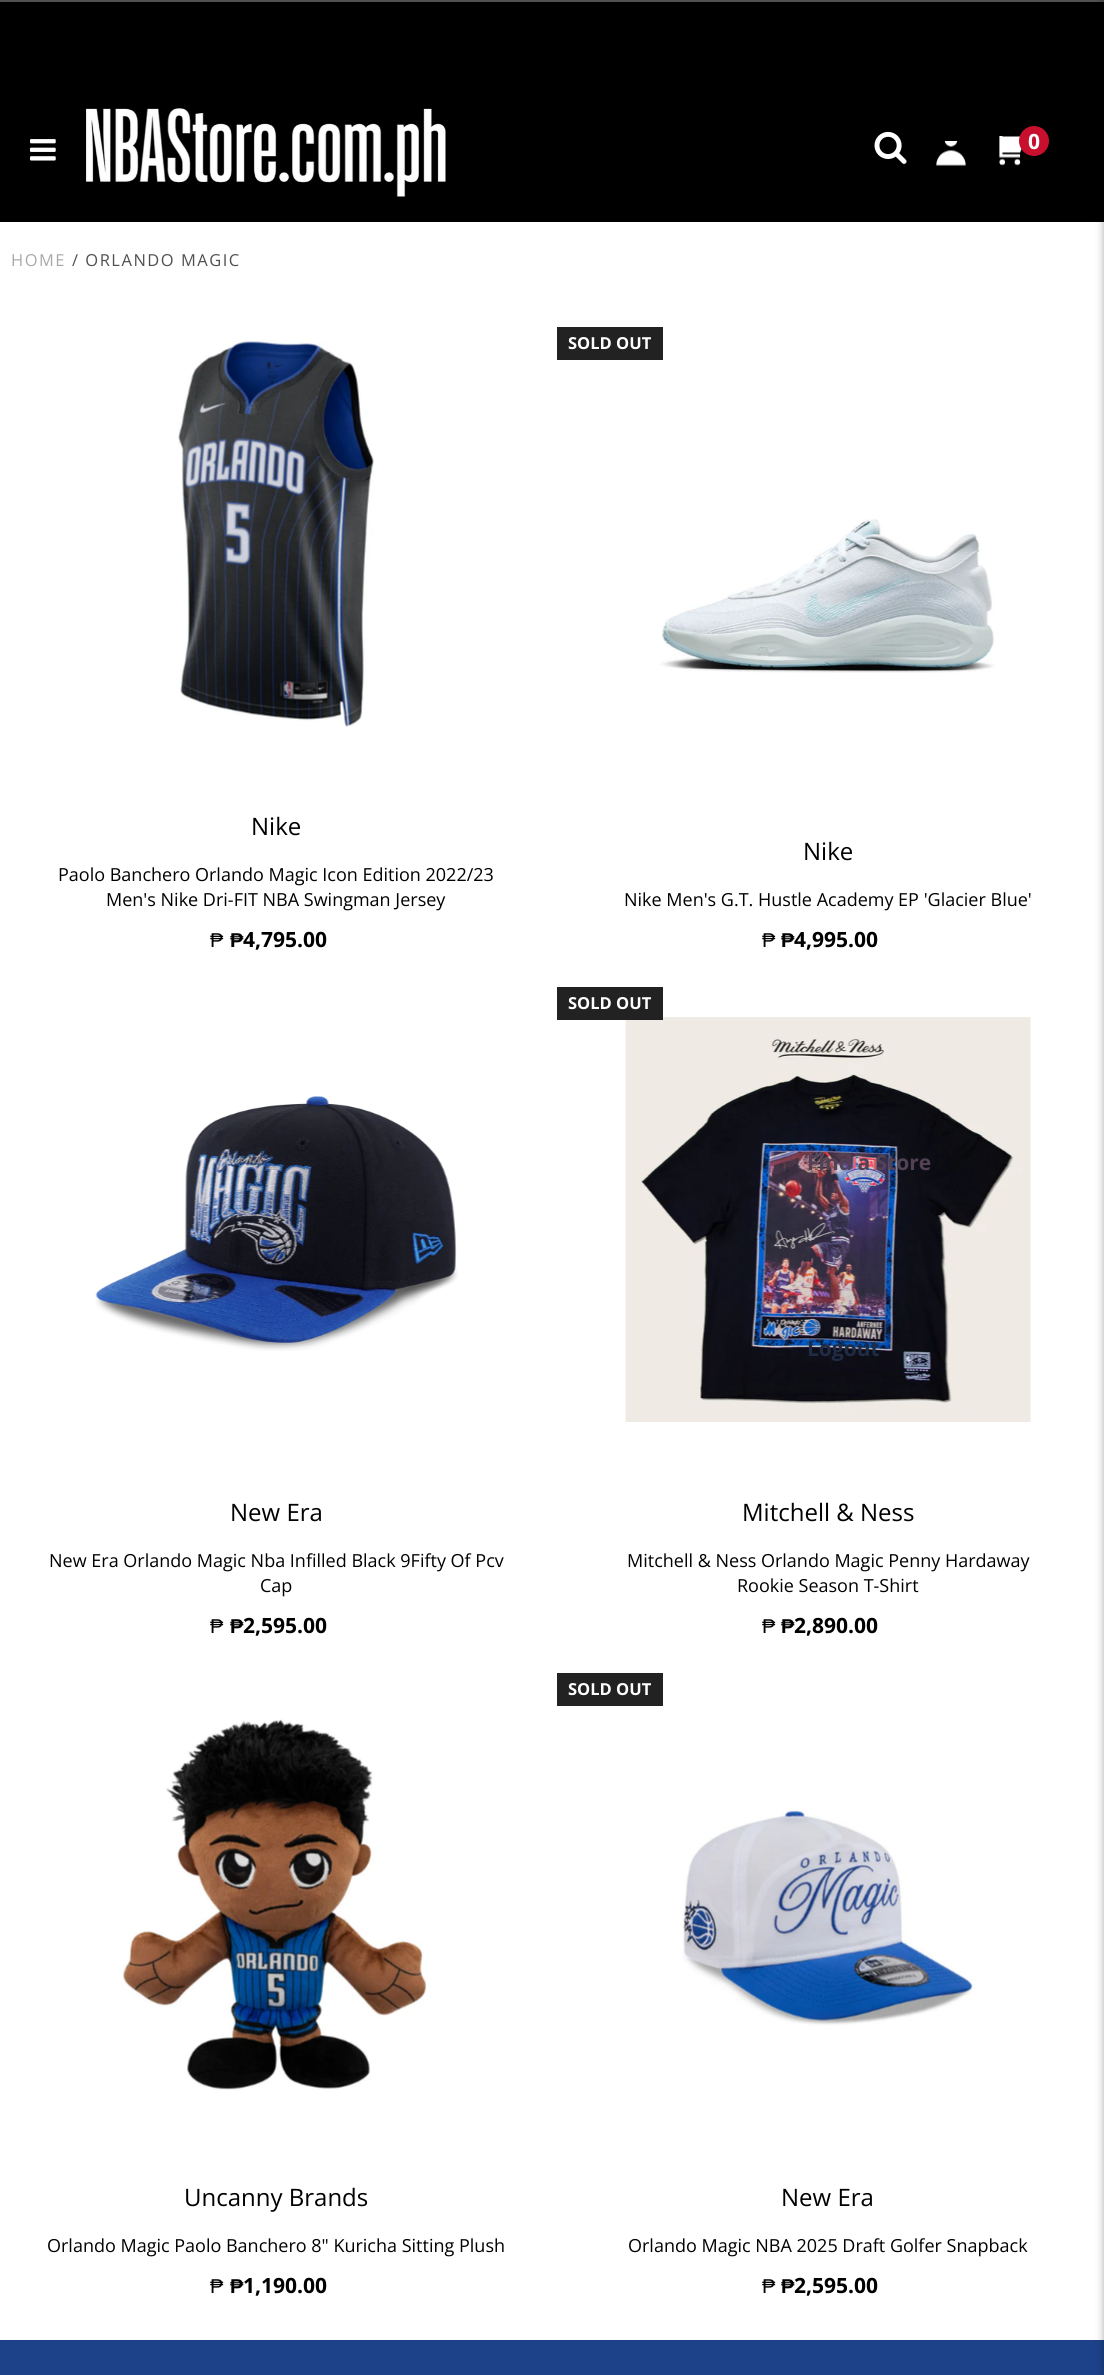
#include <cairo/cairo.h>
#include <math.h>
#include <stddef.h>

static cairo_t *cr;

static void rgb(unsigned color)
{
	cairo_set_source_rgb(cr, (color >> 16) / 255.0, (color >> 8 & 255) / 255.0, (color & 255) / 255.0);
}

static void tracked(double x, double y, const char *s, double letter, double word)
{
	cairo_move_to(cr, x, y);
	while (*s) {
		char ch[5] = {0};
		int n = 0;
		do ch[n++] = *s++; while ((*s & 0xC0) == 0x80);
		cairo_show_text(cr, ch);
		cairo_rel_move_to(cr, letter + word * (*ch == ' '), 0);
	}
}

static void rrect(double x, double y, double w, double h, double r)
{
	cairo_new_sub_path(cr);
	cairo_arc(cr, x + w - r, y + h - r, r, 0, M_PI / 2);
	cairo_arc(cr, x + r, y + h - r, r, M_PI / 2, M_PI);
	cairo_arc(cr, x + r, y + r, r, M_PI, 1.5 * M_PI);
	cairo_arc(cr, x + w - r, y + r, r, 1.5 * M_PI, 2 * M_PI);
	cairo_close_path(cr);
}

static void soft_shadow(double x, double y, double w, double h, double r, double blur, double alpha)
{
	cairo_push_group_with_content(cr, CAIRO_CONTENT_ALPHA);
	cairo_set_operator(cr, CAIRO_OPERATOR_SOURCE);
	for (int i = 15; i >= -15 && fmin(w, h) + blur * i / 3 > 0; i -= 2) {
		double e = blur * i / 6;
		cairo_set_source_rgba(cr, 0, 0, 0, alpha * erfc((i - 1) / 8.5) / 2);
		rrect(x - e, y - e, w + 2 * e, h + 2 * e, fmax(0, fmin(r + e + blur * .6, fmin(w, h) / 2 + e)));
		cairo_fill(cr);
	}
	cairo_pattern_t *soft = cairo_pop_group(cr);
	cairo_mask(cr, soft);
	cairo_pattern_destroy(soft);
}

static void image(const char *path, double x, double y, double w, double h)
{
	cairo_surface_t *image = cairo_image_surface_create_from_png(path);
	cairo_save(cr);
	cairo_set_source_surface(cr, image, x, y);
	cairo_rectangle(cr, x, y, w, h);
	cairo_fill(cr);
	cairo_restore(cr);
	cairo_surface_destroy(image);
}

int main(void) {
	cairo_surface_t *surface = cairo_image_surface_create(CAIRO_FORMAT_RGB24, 1104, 2375);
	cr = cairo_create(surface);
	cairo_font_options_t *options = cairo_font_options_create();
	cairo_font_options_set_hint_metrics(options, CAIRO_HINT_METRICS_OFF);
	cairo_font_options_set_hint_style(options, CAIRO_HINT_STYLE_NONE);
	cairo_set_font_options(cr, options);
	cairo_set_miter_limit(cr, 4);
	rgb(0xffffff);
	cairo_paint(cr);
	rgb(0x505050);
	cairo_rectangle(cr, 0, 0, 1104, 2);
	cairo_fill(cr);
	rgb(0x000000);
	cairo_rectangle(cr, 0, 2, 1104, 220);
	cairo_fill(cr);
	image("img/1.png", 30, 139, 26, 22);
	image("img/2.png", 86, 108, 360, 89);
	image("img/3.png", 874, 131, 33, 33);
	image("img/4.png", 936, 141, 30, 25);
	image("img/5.png", 999, 136, 23, 30);
	rgb(0xc8102e);
	cairo_arc(cr, 1034, 141, 15, 0, 2 * M_PI);
	cairo_fill(cr);
	image("img/6.png", 178, 339, 196, 388);
	rgb(0x222222);
	cairo_rectangle(cr, 557, 327, 106, 33);
	cairo_fill(cr);
	image("img/7.png", 660, 519, 335, 154);
	image("img/8.png", 95, 1096, 363, 255);
	image("img/9.png", 625, 1017, 406, 405);
	cairo_rectangle(cr, 557, 987, 106, 33);
	cairo_fill(cr);
	image("img/10.png", 122, 1719, 305, 371);
	cairo_rectangle(cr, 557, 1673, 106, 33);
	cairo_fill(cr);
	image("img/11.png", 681, 1810, 292, 216);
	rgb(0x1d428a);
	cairo_rectangle(cr, 0, 2340, 1104, 35);
	cairo_fill(cr);
	rgb(0x000000);
	soft_shadow(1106, 0, 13, 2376, 0, 5, 0.5);
	cairo_select_font_face(cr, "Open Sans", CAIRO_FONT_SLANT_NORMAL, CAIRO_FONT_WEIGHT_BOLD);
	cairo_set_font_size(cr, 21);
	rgb(0xffffff);
	cairo_move_to(cr, 1028, 149);
	cairo_show_text(cr, "0");
	cairo_select_font_face(cr, "Open Sans", CAIRO_FONT_SLANT_NORMAL, CAIRO_FONT_WEIGHT_NORMAL);
	cairo_set_font_size(cr, 16.5);
	rgb(0xa9a9a9);
	tracked(11, 266, "HOME", 1.5, 0);
	rgb(0x505050);
	tracked(72, 266, "/ ORLANDO MAGIC", 1.5, 0);
	cairo_set_font_size(cr, 24);
	rgb(0x000000);
	cairo_move_to(cr, 251, 835);
	cairo_show_text(cr, "Nike");
	cairo_set_font_size(cr, 18);
	cairo_move_to(cr, 58, 881);
	cairo_show_text(cr, "Paolo Banchero Orlando Magic Icon Edition 2022/23");
	cairo_move_to(cr, 106, 906);
	cairo_show_text(cr, "Men's Nike Dri-FIT NBA Swingman Jersey");
	cairo_select_font_face(cr, "Liberation Sans", CAIRO_FONT_SLANT_NORMAL, CAIRO_FONT_WEIGHT_NORMAL);
	cairo_set_font_size(cr, 20);
	cairo_move_to(cr, 210, 947);
	cairo_show_text(cr, "₱");
	cairo_select_font_face(cr, "Liberation Sans", CAIRO_FONT_SLANT_NORMAL, CAIRO_FONT_WEIGHT_BOLD);
	cairo_move_to(cr, 230, 947);
	cairo_show_text(cr, "₱");
	cairo_select_font_face(cr, "Open Sans", CAIRO_FONT_SLANT_NORMAL, CAIRO_FONT_WEIGHT_BOLD);
	cairo_set_font_size(cr, 21);
	cairo_move_to(cr, 243, 947);
	cairo_show_text(cr, "4,795.00");
	cairo_set_font_size(cr, 16.5);
	rgb(0xffffff);
	cairo_move_to(cr, 568, 349);
	cairo_show_text(cr, "SOLD OUT");
	cairo_select_font_face(cr, "Open Sans", CAIRO_FONT_SLANT_NORMAL, CAIRO_FONT_WEIGHT_NORMAL);
	cairo_set_font_size(cr, 24);
	rgb(0x000000);
	cairo_move_to(cr, 803, 860);
	cairo_show_text(cr, "Nike");
	cairo_set_font_size(cr, 18);
	cairo_move_to(cr, 624, 906);
	cairo_show_text(cr, "Nike Men's G.T. Hustle Academy EP 'Glacier Blue'");
	cairo_select_font_face(cr, "Liberation Sans", CAIRO_FONT_SLANT_NORMAL, CAIRO_FONT_WEIGHT_NORMAL);
	cairo_set_font_size(cr, 20);
	cairo_move_to(cr, 762, 947);
	cairo_show_text(cr, "₱");
	cairo_select_font_face(cr, "Liberation Sans", CAIRO_FONT_SLANT_NORMAL, CAIRO_FONT_WEIGHT_BOLD);
	cairo_move_to(cr, 781, 947);
	cairo_show_text(cr, "₱");
	cairo_select_font_face(cr, "Open Sans", CAIRO_FONT_SLANT_NORMAL, CAIRO_FONT_WEIGHT_BOLD);
	cairo_set_font_size(cr, 21);
	cairo_move_to(cr, 794, 947);
	cairo_show_text(cr, "4,995.00");
	cairo_select_font_face(cr, "Open Sans", CAIRO_FONT_SLANT_NORMAL, CAIRO_FONT_WEIGHT_NORMAL);
	cairo_set_font_size(cr, 24);
	cairo_move_to(cr, 230, 1521);
	cairo_show_text(cr, "New Era");
	cairo_set_font_size(cr, 18);
	cairo_move_to(cr, 49, 1567);
	cairo_show_text(cr, "New Era Orlando Magic Nba Infilled Black 9Fifty Of Pcv");
	cairo_move_to(cr, 260, 1592);
	cairo_show_text(cr, "Cap");
	cairo_select_font_face(cr, "Liberation Sans", CAIRO_FONT_SLANT_NORMAL, CAIRO_FONT_WEIGHT_NORMAL);
	cairo_set_font_size(cr, 20);
	cairo_move_to(cr, 210, 1633);
	cairo_show_text(cr, "₱");
	cairo_select_font_face(cr, "Liberation Sans", CAIRO_FONT_SLANT_NORMAL, CAIRO_FONT_WEIGHT_BOLD);
	cairo_move_to(cr, 230, 1633);
	cairo_show_text(cr, "₱");
	cairo_select_font_face(cr, "Open Sans", CAIRO_FONT_SLANT_NORMAL, CAIRO_FONT_WEIGHT_BOLD);
	cairo_set_font_size(cr, 21);
	cairo_move_to(cr, 243, 1633);
	cairo_show_text(cr, "2,595.00");
	cairo_set_font_size(cr, 16.5);
	rgb(0xffffff);
	cairo_move_to(cr, 568, 1009);
	cairo_show_text(cr, "SOLD OUT");
	cairo_select_font_face(cr, "Open Sans", CAIRO_FONT_SLANT_NORMAL, CAIRO_FONT_WEIGHT_NORMAL);
	cairo_set_font_size(cr, 24);
	rgb(0x000000);
	cairo_move_to(cr, 742, 1521);
	cairo_show_text(cr, "Mitchell & Ness");
	cairo_set_font_size(cr, 18);
	cairo_move_to(cr, 627, 1567);
	cairo_show_text(cr, "Mitchell & Ness Orlando Magic Penny Hardaway");
	cairo_move_to(cr, 737, 1592);
	cairo_show_text(cr, "Rookie Season T-Shirt");
	cairo_select_font_face(cr, "Liberation Sans", CAIRO_FONT_SLANT_NORMAL, CAIRO_FONT_WEIGHT_NORMAL);
	cairo_set_font_size(cr, 20);
	cairo_move_to(cr, 762, 1633);
	cairo_show_text(cr, "₱");
	cairo_select_font_face(cr, "Liberation Sans", CAIRO_FONT_SLANT_NORMAL, CAIRO_FONT_WEIGHT_BOLD);
	cairo_move_to(cr, 781, 1633);
	cairo_show_text(cr, "₱");
	cairo_select_font_face(cr, "Open Sans", CAIRO_FONT_SLANT_NORMAL, CAIRO_FONT_WEIGHT_BOLD);
	cairo_set_font_size(cr, 21);
	cairo_move_to(cr, 794, 1633);
	cairo_show_text(cr, "2,890.00");
	cairo_select_font_face(cr, "Open Sans", CAIRO_FONT_SLANT_NORMAL, CAIRO_FONT_WEIGHT_NORMAL);
	cairo_set_font_size(cr, 24);
	cairo_move_to(cr, 184, 2206);
	cairo_show_text(cr, "Uncanny Brands");
	cairo_set_font_size(cr, 18);
	cairo_move_to(cr, 47, 2252);
	cairo_show_text(cr, "Orlando Magic Paolo Banchero 8\" Kuricha Sitting Plush");
	cairo_select_font_face(cr, "Liberation Sans", CAIRO_FONT_SLANT_NORMAL, CAIRO_FONT_WEIGHT_NORMAL);
	cairo_set_font_size(cr, 20);
	cairo_move_to(cr, 210, 2293);
	cairo_show_text(cr, "₱");
	cairo_select_font_face(cr, "Liberation Sans", CAIRO_FONT_SLANT_NORMAL, CAIRO_FONT_WEIGHT_BOLD);
	cairo_move_to(cr, 230, 2293);
	cairo_show_text(cr, "₱");
	cairo_select_font_face(cr, "Open Sans", CAIRO_FONT_SLANT_NORMAL, CAIRO_FONT_WEIGHT_BOLD);
	cairo_set_font_size(cr, 21);
	cairo_move_to(cr, 243, 2293);
	cairo_show_text(cr, "1,190.00");
	cairo_set_font_size(cr, 16.5);
	rgb(0xffffff);
	cairo_move_to(cr, 568, 1695);
	cairo_show_text(cr, "SOLD OUT");
	cairo_select_font_face(cr, "Open Sans", CAIRO_FONT_SLANT_NORMAL, CAIRO_FONT_WEIGHT_NORMAL);
	cairo_set_font_size(cr, 24);
	rgb(0x000000);
	cairo_move_to(cr, 781, 2206);
	cairo_show_text(cr, "New Era");
	cairo_set_font_size(cr, 18);
	cairo_move_to(cr, 628, 2252);
	cairo_show_text(cr, "Orlando Magic NBA 2025 Draft Golfer Snapback");
	cairo_select_font_face(cr, "Liberation Sans", CAIRO_FONT_SLANT_NORMAL, CAIRO_FONT_WEIGHT_NORMAL);
	cairo_set_font_size(cr, 20);
	cairo_move_to(cr, 762, 2293);
	cairo_show_text(cr, "₱");
	cairo_select_font_face(cr, "Liberation Sans", CAIRO_FONT_SLANT_NORMAL, CAIRO_FONT_WEIGHT_BOLD);
	cairo_move_to(cr, 781, 2293);
	cairo_show_text(cr, "₱");
	cairo_select_font_face(cr, "Open Sans", CAIRO_FONT_SLANT_NORMAL, CAIRO_FONT_WEIGHT_BOLD);
	cairo_set_font_size(cr, 21);
	cairo_move_to(cr, 794, 2293);
	cairo_show_text(cr, "2,595.00");
	rgb(0x534156);
	cairo_move_to(cr, 807, 1170);
	cairo_show_text(cr, "Find a Store");
	rgb(0x1f2c45);
	cairo_move_to(cr, 807, 1356);
	cairo_show_text(cr, "Logout");
	cairo_surface_write_to_png(surface, "page.png");
	cairo_font_options_destroy(options);
	cairo_destroy(cr);
	cairo_surface_destroy(surface);
	return 0;
}
